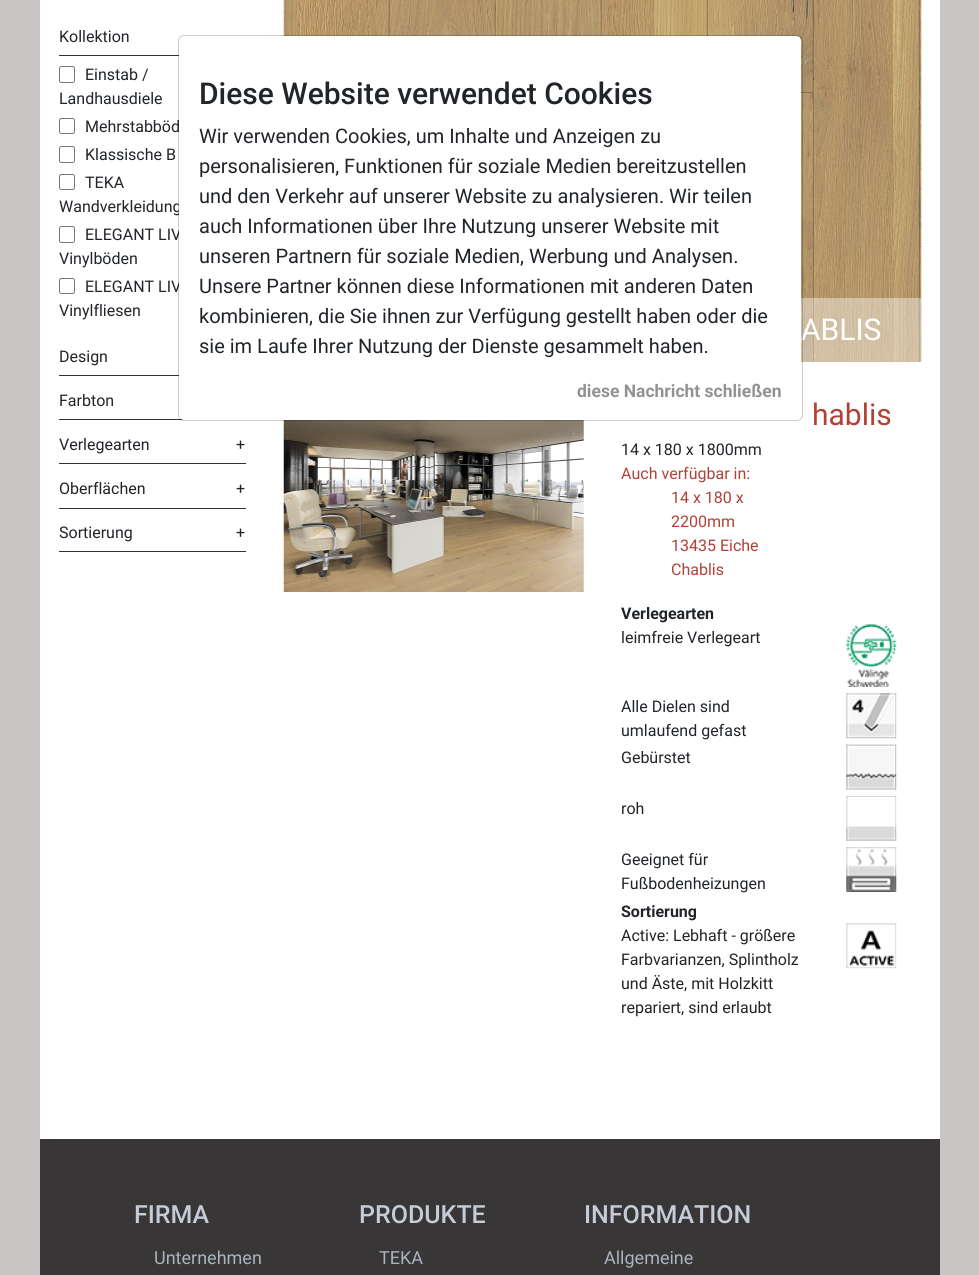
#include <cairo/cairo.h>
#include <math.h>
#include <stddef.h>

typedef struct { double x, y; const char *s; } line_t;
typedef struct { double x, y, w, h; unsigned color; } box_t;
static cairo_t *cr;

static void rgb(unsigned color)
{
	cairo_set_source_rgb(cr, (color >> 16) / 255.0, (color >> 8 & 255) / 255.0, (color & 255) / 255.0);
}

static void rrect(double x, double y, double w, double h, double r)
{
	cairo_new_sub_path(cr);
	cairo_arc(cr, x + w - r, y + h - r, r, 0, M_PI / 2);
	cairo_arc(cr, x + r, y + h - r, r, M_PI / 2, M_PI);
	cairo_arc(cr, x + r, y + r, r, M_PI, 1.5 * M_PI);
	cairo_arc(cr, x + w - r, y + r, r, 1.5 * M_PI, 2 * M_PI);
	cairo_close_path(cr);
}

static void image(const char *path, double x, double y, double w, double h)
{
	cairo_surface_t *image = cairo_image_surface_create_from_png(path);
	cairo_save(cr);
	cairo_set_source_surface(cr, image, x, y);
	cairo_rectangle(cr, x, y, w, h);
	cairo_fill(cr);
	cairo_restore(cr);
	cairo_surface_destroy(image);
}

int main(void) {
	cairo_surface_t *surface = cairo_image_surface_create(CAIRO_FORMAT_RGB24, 979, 1275);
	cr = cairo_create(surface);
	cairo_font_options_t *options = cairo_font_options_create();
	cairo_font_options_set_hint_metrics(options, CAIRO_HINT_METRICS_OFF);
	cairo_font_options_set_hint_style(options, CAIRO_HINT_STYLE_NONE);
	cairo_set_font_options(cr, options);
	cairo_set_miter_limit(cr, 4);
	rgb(0xc8c5c4);
	cairo_paint(cr);
	rgb(0xffffff);
	cairo_rectangle(cr, 40, 0, 900, 1139);
	cairo_fill(cr);
	rgb(0x333333);
	cairo_rectangle(cr, 59, 55, 120, 1);
	cairo_fill(cr);
	rrect(59.5, 66.5, 15, 16, 2);
	rgb(0x767676);
	cairo_set_line_width(cr, 1);
	cairo_stroke(cr);
	rrect(59.5, 118.5, 15, 15, 2);
	cairo_stroke(cr);
	rrect(59.5, 146.5, 15, 16, 2);
	cairo_stroke(cr);
	rrect(59.5, 174.5, 15, 15, 2);
	cairo_stroke(cr);
	rrect(59.5, 226.5, 15, 16, 2);
	cairo_stroke(cr);
	rrect(59.5, 278.5, 15, 15, 2);
	cairo_stroke(cr);
	{
		static const box_t items[] = {
			{59, 375, 120, 1, 0x333333},
			{59, 419, 125, 1, 0x333333},
			{59, 463, 187, 1, 0x333333},
			{59, 508, 187, 1, 0x333333},
			{59, 551, 187, 1, 0x333333},
		};
		for (size_t i = 0; i < sizeof items / sizeof *items; i++) {
			rgb(items[i].color);
			cairo_rectangle(cr, items[i].x, items[i].y, items[i].w, items[i].h);
			cairo_fill(cr);
		}
	}
	image("img/1.png", 283, 0, 639, 362);
	cairo_set_source_rgba(cr, 1, 1, 1, 0.4);
	cairo_rectangle(cr, 801, 298, 120, 64);
	cairo_fill(cr);
	image("img/2.png", 283, 420, 301, 172);
	image("img/3.png", 846, 624, 51, 63);
	image("img/4.png", 846, 693, 51, 46);
	image("img/5.png", 846, 744, 51, 46);
	image("img/6.png", 846, 795, 51, 46);
	image("img/7.png", 846, 847, 51, 45);
	image("img/8.png", 846, 923, 51, 46);
	rgb(0x383636);
	cairo_rectangle(cr, 40, 1139, 900, 136);
	cairo_fill(cr);
	cairo_select_font_face(cr, "Roboto", CAIRO_FONT_SLANT_NORMAL, CAIRO_FONT_WEIGHT_NORMAL);
	cairo_set_font_size(cr, 16);
	rgb(0x212529);
	{
		static const line_t items[] = {
			{59, 42, "Kollektion"},
			{85, 80, "Einstab /"},
			{59, 104, "Landhausdiele"},
			{85, 132, "Mehrstabböd"},
			{85, 160, "Klassische B"},
			{85, 188, "TEKA"},
			{59, 212, "Wandverkleidung"},
			{85, 240, "ELEGANT LIV"},
			{59, 264, "Vinylböden"},
			{85, 292, "ELEGANT LIV"},
			{59, 316, "Vinylfliesen"},
			{59, 362, "Design"},
			{59, 406, "Farbton"},
			{59, 450, "Verlegearten"},
			{236, 450, "+"},
			{59, 494, "Oberflächen"},
			{236, 494, "+"},
			{59, 538, "Sortierung"},
			{236, 538, "+"},
		};
		for (size_t i = 0; i < sizeof items / sizeof *items; i++) {
			cairo_move_to(cr, items[i].x, items[i].y);
			cairo_show_text(cr, items[i].s);
		}
	}
	cairo_set_font_size(cr, 30);
	rgb(0xffffff);
	cairo_move_to(cr, 801, 340);
	cairo_show_text(cr, "ABLIS");
	rgb(0xb14235);
	cairo_move_to(cr, 812, 425);
	cairo_show_text(cr, "hablis");
	cairo_set_font_size(cr, 16);
	rgb(0x212529);
	cairo_move_to(cr, 621, 455);
	cairo_show_text(cr, "14 x 180 x 1800mm");
	rgb(0xb14235);
	{
		static const line_t items[] = {
			{621, 479, "Auch verfügbar in:"},
			{671, 503, "14 x 180 x"},
			{671, 527, "2200mm"},
			{671, 551, "13435 Eiche"},
			{671, 575, "Chablis"},
		};
		for (size_t i = 0; i < sizeof items / sizeof *items; i++) {
			cairo_move_to(cr, items[i].x, items[i].y);
			cairo_show_text(cr, items[i].s);
		}
	}
	cairo_select_font_face(cr, "Roboto", CAIRO_FONT_SLANT_NORMAL, CAIRO_FONT_WEIGHT_BOLD);
	rgb(0x212529);
	cairo_move_to(cr, 621, 619);
	cairo_show_text(cr, "Verlegearten");
	cairo_select_font_face(cr, "Roboto", CAIRO_FONT_SLANT_NORMAL, CAIRO_FONT_WEIGHT_NORMAL);
	{
		static const line_t items[] = {
			{621, 643, "leimfreie Verlegeart"},
			{621, 712, "Alle Dielen sind"},
			{621, 736, "umlaufend gefast"},
			{621, 763, "Gebürstet"},
			{621, 814, "roh"},
			{621, 865, "Geeignet für"},
			{621, 889, "Fußbodenheizungen"},
		};
		for (size_t i = 0; i < sizeof items / sizeof *items; i++) {
			cairo_move_to(cr, items[i].x, items[i].y);
			cairo_show_text(cr, items[i].s);
		}
	}
	cairo_select_font_face(cr, "Roboto", CAIRO_FONT_SLANT_NORMAL, CAIRO_FONT_WEIGHT_BOLD);
	cairo_move_to(cr, 621, 917);
	cairo_show_text(cr, "Sortierung");
	cairo_select_font_face(cr, "Roboto", CAIRO_FONT_SLANT_NORMAL, CAIRO_FONT_WEIGHT_NORMAL);
	{
		static const line_t items[] = {
			{621, 941, "Active: Lebhaft - größere"},
			{621, 965, "Farbvarianzen, Splintholz"},
			{621, 989, "und Äste, mit Holzkitt"},
			{621, 1013, "repariert, sind erlaubt"},
		};
		for (size_t i = 0; i < sizeof items / sizeof *items; i++) {
			cairo_move_to(cr, items[i].x, items[i].y);
			cairo_show_text(cr, items[i].s);
		}
	}
	rgb(0xffffff);
	rrect(179, 36, 622, 384, 5);
	cairo_fill(cr);
	rrect(178.5, 35.5, 624, 385, 5.5);
	cairo_set_source_rgba(cr, 0, 0, 0, 0.2);
	cairo_stroke(cr);
	cairo_select_font_face(cr, "Roboto Medium", CAIRO_FONT_SLANT_NORMAL, CAIRO_FONT_WEIGHT_NORMAL);
	cairo_set_font_size(cr, 30);
	rgb(0x212529);
	cairo_move_to(cr, 199, 104);
	cairo_show_text(cr, "Diese Website verwendet Cookies");
	cairo_select_font_face(cr, "Roboto", CAIRO_FONT_SLANT_NORMAL, CAIRO_FONT_WEIGHT_NORMAL);
	cairo_set_font_size(cr, 20);
	{
		static const line_t items[] = {
			{199, 143, "Wir verwenden Cookies, um Inhalte und Anzeigen zu"},
			{199, 173, "personalisieren, Funktionen für soziale Medien bereitzustellen"},
			{199, 203, "und den Verkehr auf unserer Website zu analysieren. Wir teilen"},
			{199, 233, "auch Informationen über Ihre Nutzung unserer Website mit"},
			{199, 263, "unseren Partnern für soziale Medien, Werbung und Analysen."},
			{199, 293, "Unsere Partner können diese Informationen mit anderen Daten"},
			{199, 323, "kombinieren, die Sie ihnen zur Verfügung gestellt haben oder die"},
			{199, 353, "sie im Laufe Ihrer Nutzung der Dienste gesammelt haben."},
		};
		for (size_t i = 0; i < sizeof items / sizeof *items; i++) {
			cairo_move_to(cr, items[i].x, items[i].y);
			cairo_show_text(cr, items[i].s);
		}
	}
	cairo_select_font_face(cr, "Roboto", CAIRO_FONT_SLANT_NORMAL, CAIRO_FONT_WEIGHT_BOLD);
	cairo_set_font_size(cr, 17.5);
	rgb(0x909294);
	cairo_move_to(cr, 577, 397);
	cairo_show_text(cr, "diese Nachricht schließen");
	cairo_select_font_face(cr, "Roboto Medium", CAIRO_FONT_SLANT_NORMAL, CAIRO_FONT_WEIGHT_NORMAL);
	cairo_set_font_size(cr, 25);
	rgb(0xc6ccd6);
	cairo_move_to(cr, 134, 1223);
	cairo_show_text(cr, "FIRMA");
	cairo_select_font_face(cr, "Roboto", CAIRO_FONT_SLANT_NORMAL, CAIRO_FONT_WEIGHT_NORMAL);
	cairo_set_font_size(cr, 18);
	rgb(0xabb3be);
	cairo_move_to(cr, 154, 1264);
	cairo_show_text(cr, "Unternehmen");
	cairo_select_font_face(cr, "Roboto Medium", CAIRO_FONT_SLANT_NORMAL, CAIRO_FONT_WEIGHT_NORMAL);
	cairo_set_font_size(cr, 25);
	rgb(0xc6ccd6);
	cairo_move_to(cr, 359, 1223);
	cairo_show_text(cr, "PRODUKTE");
	cairo_select_font_face(cr, "Roboto", CAIRO_FONT_SLANT_NORMAL, CAIRO_FONT_WEIGHT_NORMAL);
	cairo_set_font_size(cr, 18);
	rgb(0xabb3be);
	cairo_move_to(cr, 379, 1264);
	cairo_show_text(cr, "TEKA");
	cairo_select_font_face(cr, "Roboto Medium", CAIRO_FONT_SLANT_NORMAL, CAIRO_FONT_WEIGHT_NORMAL);
	cairo_set_font_size(cr, 25);
	rgb(0xc6ccd6);
	cairo_move_to(cr, 584, 1223);
	cairo_show_text(cr, "INFORMATION");
	cairo_select_font_face(cr, "Roboto", CAIRO_FONT_SLANT_NORMAL, CAIRO_FONT_WEIGHT_NORMAL);
	cairo_set_font_size(cr, 18);
	rgb(0xabb3be);
	cairo_move_to(cr, 604, 1264);
	cairo_show_text(cr, "Allgemeine");
	cairo_surface_write_to_png(surface, "page.png");
	cairo_font_options_destroy(options);
	cairo_destroy(cr);
	cairo_surface_destroy(surface);
	return 0;
}
